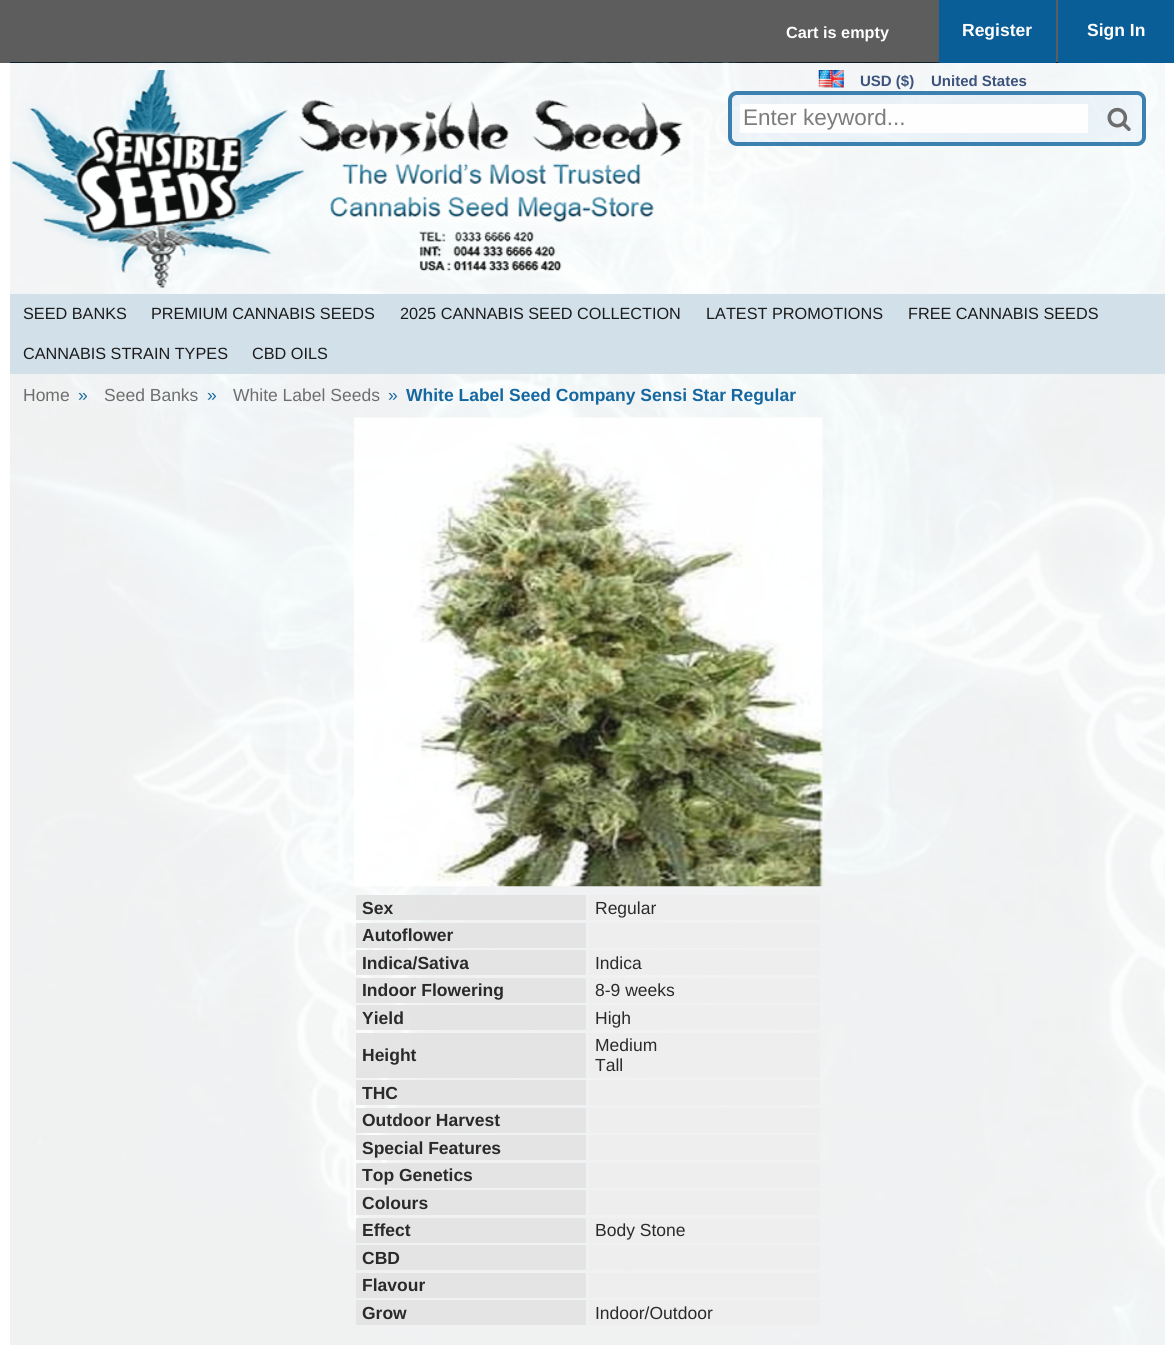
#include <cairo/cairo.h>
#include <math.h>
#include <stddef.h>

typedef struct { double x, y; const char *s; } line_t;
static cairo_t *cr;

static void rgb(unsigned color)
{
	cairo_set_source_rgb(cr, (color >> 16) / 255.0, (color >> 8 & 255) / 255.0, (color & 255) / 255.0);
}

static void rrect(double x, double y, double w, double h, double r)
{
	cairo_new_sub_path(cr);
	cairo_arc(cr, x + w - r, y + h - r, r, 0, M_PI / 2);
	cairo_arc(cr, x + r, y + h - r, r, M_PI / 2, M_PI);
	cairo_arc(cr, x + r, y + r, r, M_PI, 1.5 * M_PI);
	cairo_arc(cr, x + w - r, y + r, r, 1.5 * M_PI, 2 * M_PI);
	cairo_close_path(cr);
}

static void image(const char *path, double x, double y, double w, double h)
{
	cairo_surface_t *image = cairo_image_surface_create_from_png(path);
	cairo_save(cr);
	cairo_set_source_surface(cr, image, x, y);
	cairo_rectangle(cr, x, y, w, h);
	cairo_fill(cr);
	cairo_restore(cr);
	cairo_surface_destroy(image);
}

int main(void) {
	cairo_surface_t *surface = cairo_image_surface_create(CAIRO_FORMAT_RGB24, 1174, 1345);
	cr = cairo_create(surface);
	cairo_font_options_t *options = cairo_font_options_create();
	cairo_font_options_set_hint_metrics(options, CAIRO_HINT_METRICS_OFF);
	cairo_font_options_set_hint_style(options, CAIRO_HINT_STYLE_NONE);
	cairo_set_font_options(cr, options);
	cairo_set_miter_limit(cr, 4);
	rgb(0xffffff);
	cairo_paint(cr);
	image("img/5.png", 10, 62, 1155, 1283);
	cairo_set_source_rgba(cr, 0.039, 0.039, 0.043, 0.66);
	cairo_rectangle(cr, 0, 0, 1174, 63);
	cairo_fill(cr);
	cairo_set_source_rgba(cr, 0.027, 0.369, 0.6, 0.97);
	cairo_rectangle(cr, 939, 0, 117, 63);
	cairo_fill(cr);
	cairo_rectangle(cr, 1058, 0, 116, 63);
	cairo_fill(cr);
	cairo_set_source_rgba(cr, 1, 1, 1, 0.95);
	cairo_rectangle(cr, 10, 63, 1155, 231);
	cairo_fill(cr);
	image("img/1.png", 10, 70, 674, 218);
	image("img/2.png", 818, 70, 26, 18);
	cairo_set_source_rgba(cr, 0.49, 0.733, 0.914, 0.09);
	rrect(728, 91, 418, 55, 9);
	cairo_fill(cr);
	rrect(730, 93, 414, 51, 7);
	cairo_set_source_rgba(cr, 0.204, 0.482, 0.675, 0.95);
	cairo_set_line_width(cr, 4);
	cairo_stroke(cr);
	cairo_set_source_rgba(cr, 1, 1, 1, 0.95);
	cairo_rectangle(cr, 740, 104, 348, 29);
	cairo_fill(cr);
	image("img/3.png", 1107, 107, 24, 24);
	cairo_set_source_rgba(cr, 1, 1, 1, 0.97);
	cairo_rectangle(cr, 10, 294, 1155, 80);
	cairo_fill(cr);
	cairo_set_source_rgba(cr, 0.82, 0.875, 0.918, 0.97);
	cairo_rectangle(cr, 10, 294, 1155, 80);
	cairo_fill(cr);
	cairo_set_source_rgba(cr, 1, 1, 1, 0.94);
	cairo_rectangle(cr, 10, 374, 1155, 971);
	cairo_fill(cr);
	image("img/4.png", 354, 417, 469, 470);
	cairo_set_source_rgba(cr, 0.89, 0.89, 0.89, 0.94);
	cairo_rectangle(cr, 356, 895, 230, 25);
	cairo_fill(cr);
	cairo_set_source_rgba(cr, 0.933, 0.933, 0.933, 0.94);
	cairo_rectangle(cr, 589, 895, 231, 25);
	cairo_fill(cr);
	cairo_set_source_rgba(cr, 0.89, 0.89, 0.89, 0.94);
	cairo_rectangle(cr, 356, 923, 230, 25);
	cairo_fill(cr);
	rgb(0xeeeeee);
	cairo_rectangle(cr, 589, 923, 231, 25);
	cairo_fill(cr);
	cairo_set_source_rgba(cr, 0.89, 0.89, 0.89, 0.94);
	cairo_rectangle(cr, 356, 950, 230, 25);
	cairo_fill(cr);
	rgb(0xeeeeee);
	cairo_rectangle(cr, 589, 950, 231, 25);
	cairo_fill(cr);
	cairo_set_source_rgba(cr, 0.89, 0.89, 0.89, 0.94);
	cairo_rectangle(cr, 356, 978, 230, 25);
	cairo_fill(cr);
	rgb(0xeeeeee);
	cairo_rectangle(cr, 589, 978, 231, 25);
	cairo_fill(cr);
	cairo_set_source_rgba(cr, 0.89, 0.89, 0.89, 0.94);
	cairo_rectangle(cr, 356, 1005, 230, 25);
	cairo_fill(cr);
	rgb(0xeeeeee);
	cairo_rectangle(cr, 589, 1005, 231, 25);
	cairo_fill(cr);
	cairo_set_source_rgba(cr, 0.89, 0.89, 0.89, 0.94);
	cairo_rectangle(cr, 356, 1033, 230, 45);
	cairo_fill(cr);
	rgb(0xeeeeee);
	cairo_rectangle(cr, 589, 1033, 231, 45);
	cairo_fill(cr);
	cairo_set_source_rgba(cr, 0.89, 0.89, 0.89, 0.94);
	cairo_rectangle(cr, 356, 1080, 230, 25);
	cairo_fill(cr);
	rgb(0xeeeeee);
	cairo_rectangle(cr, 589, 1080, 231, 25);
	cairo_fill(cr);
	cairo_set_source_rgba(cr, 0.89, 0.89, 0.89, 0.94);
	cairo_rectangle(cr, 356, 1108, 230, 25);
	cairo_fill(cr);
	rgb(0xeeeeee);
	cairo_rectangle(cr, 589, 1108, 231, 25);
	cairo_fill(cr);
	cairo_set_source_rgba(cr, 0.89, 0.89, 0.89, 0.94);
	cairo_rectangle(cr, 356, 1135, 230, 25);
	cairo_fill(cr);
	rgb(0xeeeeee);
	cairo_rectangle(cr, 589, 1135, 231, 25);
	cairo_fill(cr);
	cairo_set_source_rgba(cr, 0.89, 0.89, 0.89, 0.94);
	cairo_rectangle(cr, 356, 1163, 230, 25);
	cairo_fill(cr);
	rgb(0xeeeeee);
	cairo_rectangle(cr, 589, 1163, 231, 25);
	cairo_fill(cr);
	cairo_set_source_rgba(cr, 0.89, 0.89, 0.89, 0.94);
	cairo_rectangle(cr, 356, 1190, 230, 25);
	cairo_fill(cr);
	rgb(0xeeeeee);
	cairo_rectangle(cr, 589, 1190, 231, 25);
	cairo_fill(cr);
	cairo_set_source_rgba(cr, 0.89, 0.89, 0.89, 0.94);
	cairo_rectangle(cr, 356, 1218, 230, 25);
	cairo_fill(cr);
	rgb(0xeeeeee);
	cairo_rectangle(cr, 589, 1218, 231, 25);
	cairo_fill(cr);
	rgb(0xe4e4e4);
	cairo_rectangle(cr, 356, 1245, 230, 25);
	cairo_fill(cr);
	rgb(0xeeeeee);
	cairo_rectangle(cr, 589, 1245, 231, 25);
	cairo_fill(cr);
	rgb(0xe4e4e4);
	cairo_rectangle(cr, 356, 1273, 230, 25);
	cairo_fill(cr);
	rgb(0xeeeeee);
	cairo_rectangle(cr, 589, 1273, 231, 25);
	cairo_fill(cr);
	rgb(0xe4e4e4);
	cairo_rectangle(cr, 356, 1300, 230, 25);
	cairo_fill(cr);
	rgb(0xeeeeee);
	cairo_rectangle(cr, 589, 1300, 231, 25);
	cairo_fill(cr);
	cairo_select_font_face(cr, "Liberation Sans", CAIRO_FONT_SLANT_NORMAL, CAIRO_FONT_WEIGHT_BOLD);
	cairo_set_font_size(cr, 16.25);
	rgb(0xffffff);
	cairo_move_to(cr, 786, 38);
	cairo_show_text(cr, "Cart is empty");
	cairo_set_font_size(cr, 17.5);
	cairo_move_to(cr, 962, 36);
	cairo_show_text(cr, "Register");
	cairo_move_to(cr, 1087, 36);
	cairo_show_text(cr, "Sign In");
	cairo_set_font_size(cr, 15);
	rgb(0x3c547c);
	cairo_move_to(cr, 860, 86);
	cairo_show_text(cr, "USD ($)");
	cairo_move_to(cr, 931, 86);
	cairo_show_text(cr, "United States");
	cairo_select_font_face(cr, "Liberation Sans", CAIRO_FONT_SLANT_NORMAL, CAIRO_FONT_WEIGHT_NORMAL);
	cairo_set_font_size(cr, 22.5);
	rgb(0x7c7c7c);
	cairo_move_to(cr, 743, 125);
	cairo_show_text(cr, "Enter keyword...");
	cairo_set_font_size(cr, 16.25);
	rgb(0x1b1b1b);
	{
		static const line_t items[] = {
			{23, 319, "SEED BANKS"},
			{151, 319, "PREMIUM CANNABIS SEEDS"},
			{400, 319, "2025 CANNABIS SEED COLLECTION"},
			{706, 319, "LATEST PROMOTIONS"},
			{908, 319, "FREE CANNABIS SEEDS"},
			{23, 359, "CANNABIS STRAIN TYPES"},
			{252, 359, "CBD OILS"},
		};
		for (size_t i = 0; i < sizeof items / sizeof *items; i++) {
			cairo_move_to(cr, items[i].x, items[i].y);
			cairo_show_text(cr, items[i].s);
		}
	}
	cairo_set_font_size(cr, 17.5);
	rgb(0x6e6e6e);
	cairo_move_to(cr, 23, 401);
	cairo_show_text(cr, "Home");
	rgb(0x1b6ba1);
	cairo_move_to(cr, 78, 401);
	cairo_show_text(cr, "»");
	rgb(0x6e6e6e);
	cairo_move_to(cr, 104, 401);
	cairo_show_text(cr, "Seed Banks");
	rgb(0x1b6ba1);
	cairo_move_to(cr, 207, 401);
	cairo_show_text(cr, "»");
	rgb(0x6e6e6e);
	cairo_move_to(cr, 233, 401);
	cairo_show_text(cr, "White Label Seeds");
	rgb(0x1b6ba1);
	cairo_move_to(cr, 388, 401);
	cairo_show_text(cr, "»");
	cairo_select_font_face(cr, "Liberation Sans", CAIRO_FONT_SLANT_NORMAL, CAIRO_FONT_WEIGHT_BOLD);
	rgb(0x15679f);
	cairo_move_to(cr, 406, 401);
	cairo_show_text(cr, "White Label Seed Company Sensi Star Regular");
	rgb(0x2a2a2a);
	cairo_move_to(cr, 362, 914);
	cairo_show_text(cr, "Sex");
	cairo_select_font_face(cr, "Liberation Sans", CAIRO_FONT_SLANT_NORMAL, CAIRO_FONT_WEIGHT_NORMAL);
	cairo_move_to(cr, 595, 914);
	cairo_show_text(cr, "Regular");
	cairo_select_font_face(cr, "Liberation Sans", CAIRO_FONT_SLANT_NORMAL, CAIRO_FONT_WEIGHT_BOLD);
	cairo_move_to(cr, 362, 941);
	cairo_show_text(cr, "Autoflower");
	cairo_move_to(cr, 362, 969);
	cairo_show_text(cr, "Indica/Sativa");
	cairo_select_font_face(cr, "Liberation Sans", CAIRO_FONT_SLANT_NORMAL, CAIRO_FONT_WEIGHT_NORMAL);
	cairo_move_to(cr, 595, 969);
	cairo_show_text(cr, "Indica");
	cairo_select_font_face(cr, "Liberation Sans", CAIRO_FONT_SLANT_NORMAL, CAIRO_FONT_WEIGHT_BOLD);
	cairo_move_to(cr, 362, 996);
	cairo_show_text(cr, "Indoor Flowering");
	cairo_select_font_face(cr, "Liberation Sans", CAIRO_FONT_SLANT_NORMAL, CAIRO_FONT_WEIGHT_NORMAL);
	cairo_move_to(cr, 595, 996);
	cairo_show_text(cr, "8-9 weeks");
	cairo_select_font_face(cr, "Liberation Sans", CAIRO_FONT_SLANT_NORMAL, CAIRO_FONT_WEIGHT_BOLD);
	cairo_move_to(cr, 362, 1024);
	cairo_show_text(cr, "Yield");
	cairo_select_font_face(cr, "Liberation Sans", CAIRO_FONT_SLANT_NORMAL, CAIRO_FONT_WEIGHT_NORMAL);
	cairo_move_to(cr, 595, 1024);
	cairo_show_text(cr, "High");
	cairo_select_font_face(cr, "Liberation Sans", CAIRO_FONT_SLANT_NORMAL, CAIRO_FONT_WEIGHT_BOLD);
	cairo_move_to(cr, 362, 1061);
	cairo_show_text(cr, "Height");
	cairo_select_font_face(cr, "Liberation Sans", CAIRO_FONT_SLANT_NORMAL, CAIRO_FONT_WEIGHT_NORMAL);
	cairo_move_to(cr, 595, 1051);
	cairo_show_text(cr, "Medium");
	cairo_move_to(cr, 595, 1071);
	cairo_show_text(cr, "Tall");
	cairo_select_font_face(cr, "Liberation Sans", CAIRO_FONT_SLANT_NORMAL, CAIRO_FONT_WEIGHT_BOLD);
	{
		static const line_t items[] = {
			{362, 1099, "THC"},
			{362, 1126, "Outdoor Harvest"},
			{362, 1154, "Special Features"},
			{362, 1181, "Top Genetics"},
			{362, 1209, "Colours"},
			{362, 1236, "Effect"},
		};
		for (size_t i = 0; i < sizeof items / sizeof *items; i++) {
			cairo_move_to(cr, items[i].x, items[i].y);
			cairo_show_text(cr, items[i].s);
		}
	}
	cairo_select_font_face(cr, "Liberation Sans", CAIRO_FONT_SLANT_NORMAL, CAIRO_FONT_WEIGHT_NORMAL);
	cairo_move_to(cr, 595, 1236);
	cairo_show_text(cr, "Body Stone");
	cairo_select_font_face(cr, "Liberation Sans", CAIRO_FONT_SLANT_NORMAL, CAIRO_FONT_WEIGHT_BOLD);
	{
		static const line_t items[] = {
			{362, 1264, "CBD"},
			{362, 1291, "Flavour"},
			{362, 1319, "Grow"},
		};
		for (size_t i = 0; i < sizeof items / sizeof *items; i++) {
			cairo_move_to(cr, items[i].x, items[i].y);
			cairo_show_text(cr, items[i].s);
		}
	}
	cairo_select_font_face(cr, "Liberation Sans", CAIRO_FONT_SLANT_NORMAL, CAIRO_FONT_WEIGHT_NORMAL);
	cairo_move_to(cr, 595, 1319);
	cairo_show_text(cr, "Indoor/Outdoor");
	cairo_surface_write_to_png(surface, "page.png");
	cairo_font_options_destroy(options);
	cairo_destroy(cr);
	cairo_surface_destroy(surface);
	return 0;
}
